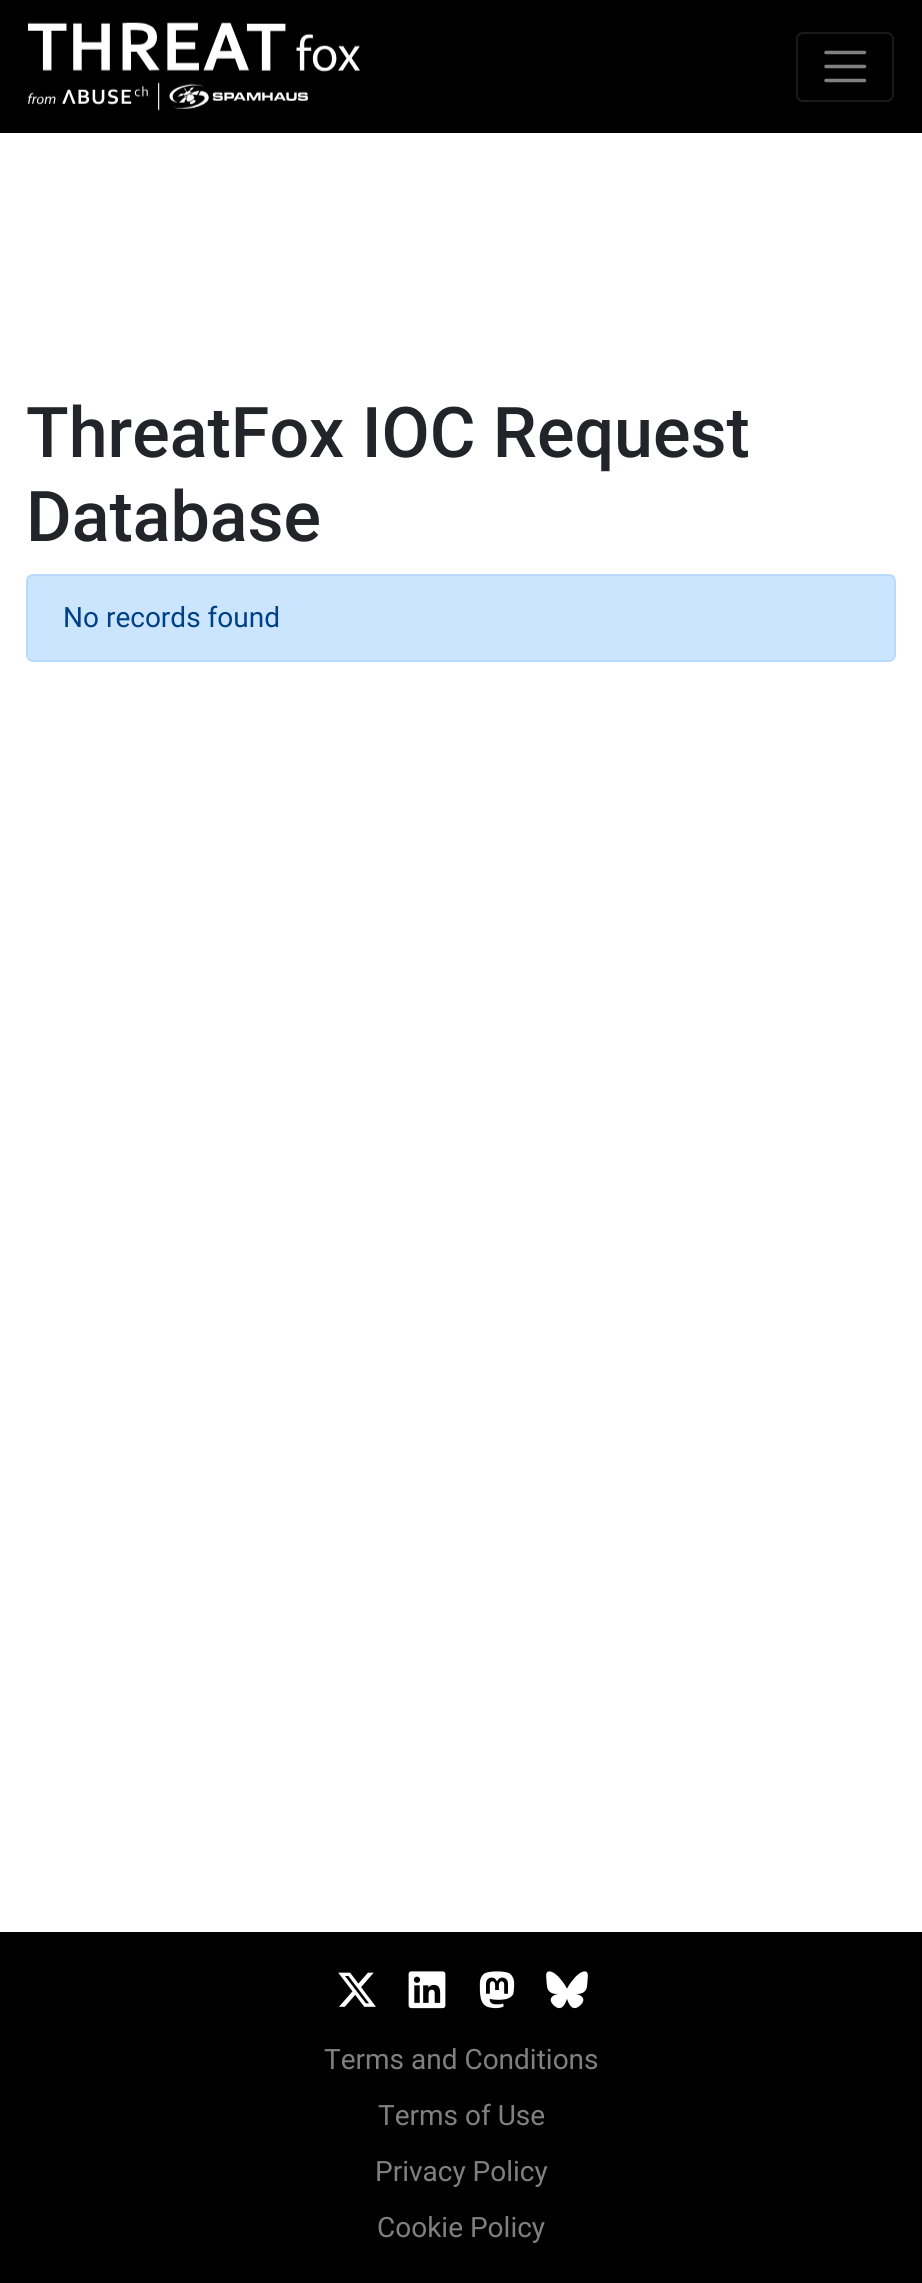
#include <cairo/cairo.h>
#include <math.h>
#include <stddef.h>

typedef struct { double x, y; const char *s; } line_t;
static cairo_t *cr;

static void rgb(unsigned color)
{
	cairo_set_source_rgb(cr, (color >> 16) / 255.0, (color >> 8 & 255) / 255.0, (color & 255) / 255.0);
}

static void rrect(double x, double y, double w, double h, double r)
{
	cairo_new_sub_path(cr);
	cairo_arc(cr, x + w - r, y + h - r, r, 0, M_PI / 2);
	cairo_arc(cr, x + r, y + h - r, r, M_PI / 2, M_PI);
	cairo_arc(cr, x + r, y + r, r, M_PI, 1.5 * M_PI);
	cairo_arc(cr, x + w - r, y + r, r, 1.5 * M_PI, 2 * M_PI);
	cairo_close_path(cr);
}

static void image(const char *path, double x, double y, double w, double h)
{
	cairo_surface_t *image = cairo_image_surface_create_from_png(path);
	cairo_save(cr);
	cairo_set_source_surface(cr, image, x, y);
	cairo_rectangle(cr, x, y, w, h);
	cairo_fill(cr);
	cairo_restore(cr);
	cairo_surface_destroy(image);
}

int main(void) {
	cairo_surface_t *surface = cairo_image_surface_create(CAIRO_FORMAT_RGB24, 922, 2283);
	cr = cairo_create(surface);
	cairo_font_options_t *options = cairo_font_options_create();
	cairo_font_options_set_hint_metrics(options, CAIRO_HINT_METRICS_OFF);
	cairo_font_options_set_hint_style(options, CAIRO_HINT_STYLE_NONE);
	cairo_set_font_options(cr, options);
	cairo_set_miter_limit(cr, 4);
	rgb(0xffffff);
	cairo_paint(cr);
	rgb(0x000000);
	cairo_rectangle(cr, 0, 0, 922, 133);
	cairo_fill(cr);
	image("img/1.png", 28, 22, 332, 89);
	rrect(797, 33, 96, 68, 6);
	rgb(0x1a1a1a);
	cairo_stroke(cr);
	cairo_new_path(cr);
	cairo_move_to(cr, 826, 52.5);
	cairo_line_to(cr, 864.5, 52.5);
	cairo_move_to(cr, 826, 66.5);
	cairo_line_to(cr, 864.5, 66.5);
	cairo_move_to(cr, 826, 80.5);
	cairo_line_to(cr, 864.5, 80.5);
	rgb(0x808080);
	cairo_set_line_width(cr, 3.5);
	cairo_set_line_cap(cr, CAIRO_LINE_CAP_ROUND);
	cairo_stroke(cr);
	rgb(0xcce5ff);
	rrect(27, 575, 868, 86, 6);
	cairo_fill_preserve(cr);
	rgb(0xb8daff);
	cairo_set_line_width(cr, 2);
	cairo_set_line_cap(cr, CAIRO_LINE_CAP_BUTT);
	cairo_stroke(cr);
	rgb(0x000000);
	cairo_rectangle(cr, 0, 1932, 922, 351);
	cairo_fill(cr);
	image("img/2.png", 338, 1972, 38, 35);
	image("img/3.png", 408, 1971, 38, 38);
	image("img/4.png", 479, 1971, 36, 38);
	image("img/5.png", 546, 1971, 42, 38);
	cairo_select_font_face(cr, "Roboto Medium", CAIRO_FONT_SLANT_NORMAL, CAIRO_FONT_WEIGHT_NORMAL);
	cairo_set_font_size(cr, 70);
	rgb(0x212529);
	cairo_move_to(cr, 26, 457);
	cairo_show_text(cr, "ThreatFox IOC Request");
	cairo_move_to(cr, 26, 541);
	cairo_show_text(cr, "Database");
	cairo_select_font_face(cr, "Roboto", CAIRO_FONT_SLANT_NORMAL, CAIRO_FONT_WEIGHT_NORMAL);
	cairo_set_font_size(cr, 28);
	rgb(0x004085);
	cairo_move_to(cr, 63, 627);
	cairo_show_text(cr, "No records found");
	rgb(0x808080);
	{
		static const line_t items[] = {
			{324, 2069, "Terms and Conditions"},
			{378, 2125, "Terms of Use"},
			{375, 2181, "Privacy Policy"},
			{377, 2237, "Cookie Policy"},
		};
		for (size_t i = 0; i < sizeof items / sizeof *items; i++) {
			cairo_move_to(cr, items[i].x, items[i].y);
			cairo_show_text(cr, items[i].s);
		}
	}
	cairo_surface_write_to_png(surface, "page.png");
	cairo_font_options_destroy(options);
	cairo_destroy(cr);
	cairo_surface_destroy(surface);
	return 0;
}
